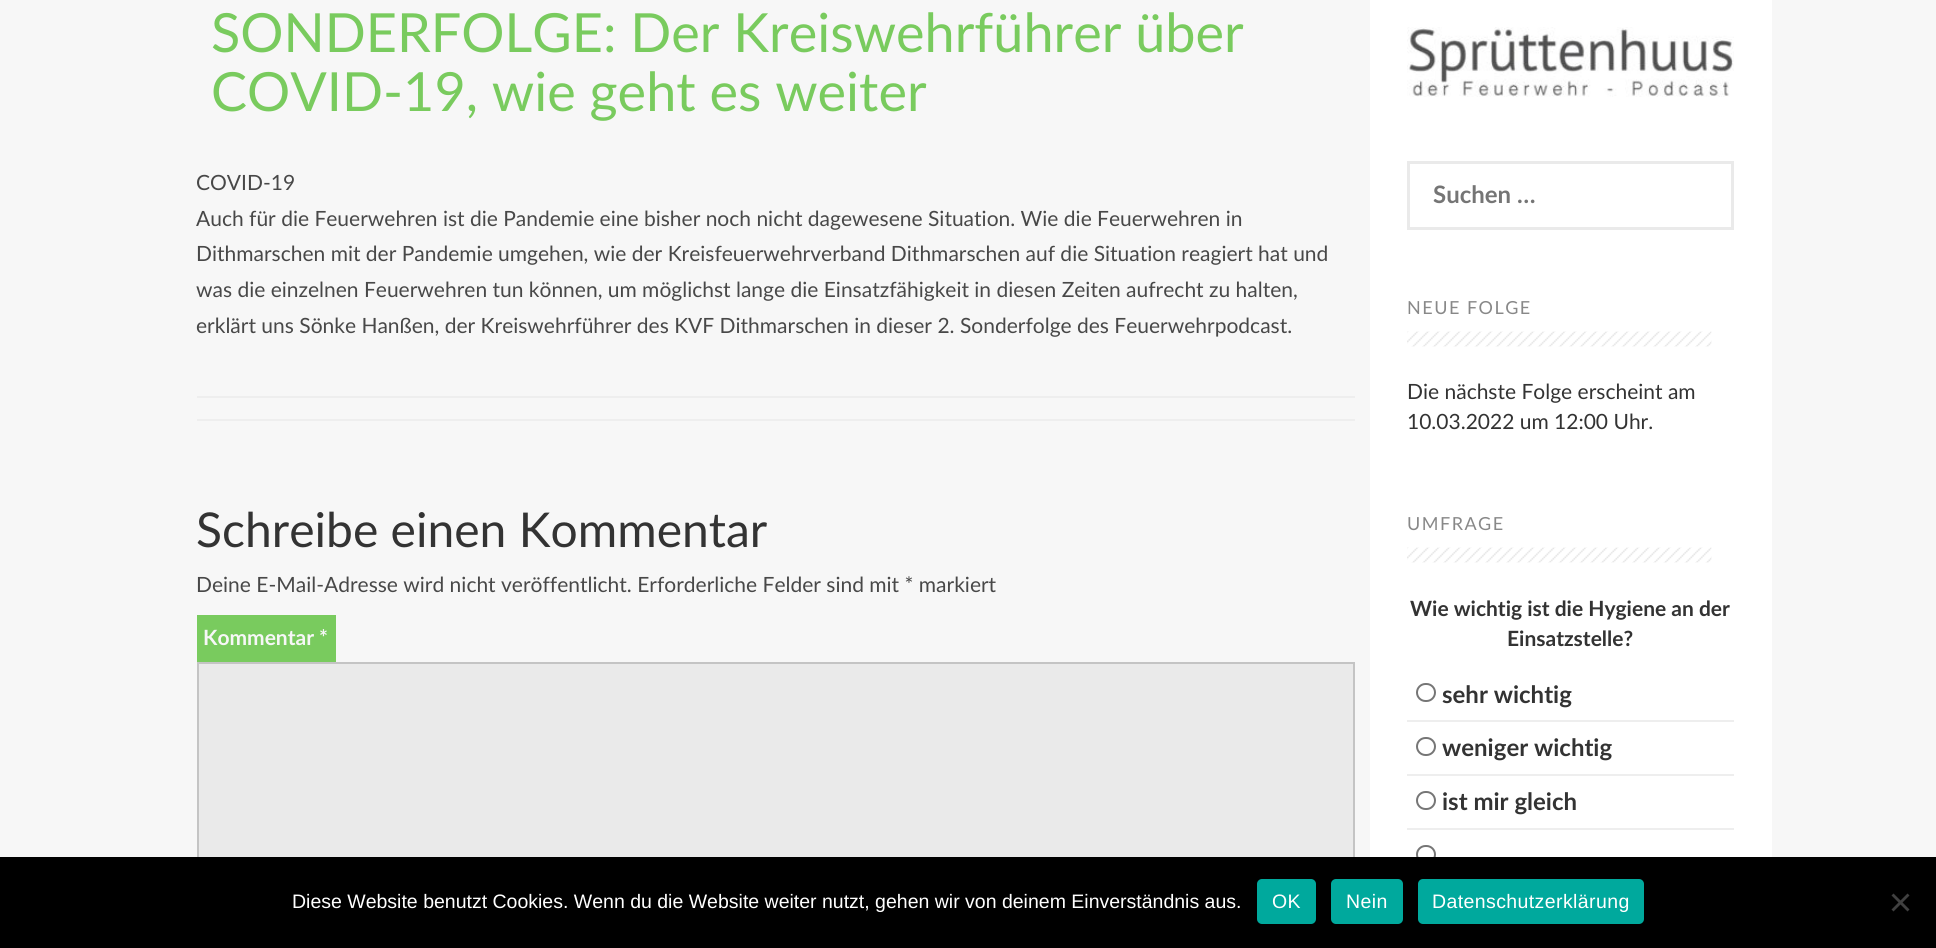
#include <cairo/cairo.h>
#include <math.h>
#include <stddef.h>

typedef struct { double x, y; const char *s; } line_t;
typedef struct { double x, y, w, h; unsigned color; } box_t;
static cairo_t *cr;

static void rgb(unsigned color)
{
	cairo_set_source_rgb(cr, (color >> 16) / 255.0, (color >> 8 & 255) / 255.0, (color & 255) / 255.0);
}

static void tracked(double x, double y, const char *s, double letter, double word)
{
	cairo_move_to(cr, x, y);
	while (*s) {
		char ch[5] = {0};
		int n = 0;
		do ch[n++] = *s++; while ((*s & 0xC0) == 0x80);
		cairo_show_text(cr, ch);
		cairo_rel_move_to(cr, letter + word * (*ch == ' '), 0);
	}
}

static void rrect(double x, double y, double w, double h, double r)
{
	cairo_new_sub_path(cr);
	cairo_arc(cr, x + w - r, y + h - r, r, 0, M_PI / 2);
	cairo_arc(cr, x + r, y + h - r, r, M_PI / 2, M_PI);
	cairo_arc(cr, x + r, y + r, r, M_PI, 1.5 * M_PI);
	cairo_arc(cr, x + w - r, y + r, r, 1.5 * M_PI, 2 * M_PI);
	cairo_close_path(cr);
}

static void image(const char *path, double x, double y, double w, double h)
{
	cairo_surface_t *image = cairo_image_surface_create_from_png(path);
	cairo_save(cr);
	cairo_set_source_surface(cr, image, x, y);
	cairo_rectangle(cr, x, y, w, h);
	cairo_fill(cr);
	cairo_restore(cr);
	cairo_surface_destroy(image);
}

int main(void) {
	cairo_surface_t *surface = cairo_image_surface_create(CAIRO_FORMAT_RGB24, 1936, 948);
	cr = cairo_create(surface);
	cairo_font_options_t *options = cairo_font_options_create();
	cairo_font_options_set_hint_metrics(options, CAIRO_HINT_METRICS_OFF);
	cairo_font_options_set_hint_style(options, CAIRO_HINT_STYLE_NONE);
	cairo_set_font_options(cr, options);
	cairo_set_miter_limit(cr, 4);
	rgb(0xf7f7f7);
	cairo_paint(cr);
	{
		static const box_t items[] = {
			{197, 396, 1158, 2, 0xeeeeee},
			{197, 419, 1158, 2, 0xeeeeee},
			{197, 615, 139, 47, 0x79cb5e},
			{199, 664, 1154, 193, 0xeaeaea},
		};
		for (size_t i = 0; i < sizeof items / sizeof *items; i++) {
			rgb(items[i].color);
			cairo_rectangle(cr, items[i].x, items[i].y, items[i].w, items[i].h);
			cairo_fill(cr);
		}
	}
	cairo_rectangle(cr, 198, 663, 1156, 254);
	rgb(0xc4c4c4);
	cairo_stroke(cr);
	rgb(0xffffff);
	cairo_rectangle(cr, 1370, 0, 402, 857);
	cairo_fill(cr);
	image("img/1.png", 1407, 27, 327, 70);
	cairo_rectangle(cr, 1408.5, 162.5, 324, 66);
	rgb(0xeaeaea);
	cairo_set_line_width(cr, 3);
	cairo_stroke(cr);
	image("img/2.png", 1407, 331, 305, 16);
	image("img/2.png", 1407, 547, 305, 16);
	rgb(0xeeeeee);
	cairo_rectangle(cr, 1407, 720, 327, 2);
	cairo_fill(cr);
	rrect(1417, 684, 18, 17, 8.5);
	rgb(0x767676);
	cairo_set_line_width(cr, 2);
	cairo_stroke(cr);
	rgb(0xeeeeee);
	cairo_rectangle(cr, 1407, 774, 327, 2);
	cairo_fill(cr);
	rrect(1417, 738, 18, 17, 8.5);
	rgb(0x767676);
	cairo_stroke(cr);
	rgb(0xeeeeee);
	cairo_rectangle(cr, 1407, 828, 327, 2);
	cairo_fill(cr);
	rrect(1417, 792, 18, 17, 8.5);
	rgb(0x767676);
	cairo_stroke(cr);
	rrect(1417, 846, 18, 17, 8.5);
	cairo_stroke(cr);
	rgb(0x000000);
	cairo_rectangle(cr, 0, 857, 1936, 91);
	cairo_fill(cr);
	rgb(0x00a99d);
	rrect(1257, 879, 59, 45, 5);
	cairo_fill(cr);
	rrect(1331, 879, 72, 45, 5);
	cairo_fill(cr);
	rrect(1418, 879, 226, 45, 5);
	cairo_fill(cr);
	rgb(0x404040);
	cairo_new_path(cr);
	cairo_move_to(cr, 1907.5, 893.5);
	cairo_line_to(cr, 1909.5, 895.5);
	cairo_line_to(cr, 1893.5, 911.5);
	cairo_line_to(cr, 1891.5, 909.5);
	cairo_close_path(cr);
	cairo_fill(cr);
	cairo_new_path(cr);
	cairo_move_to(cr, 1891.5, 895.5);
	cairo_line_to(cr, 1893.5, 893.5);
	cairo_line_to(cr, 1909.5, 909.5);
	cairo_line_to(cr, 1907.5, 911.5);
	cairo_close_path(cr);
	cairo_fill(cr);
	cairo_select_font_face(cr, "Lato", CAIRO_FONT_SLANT_NORMAL, CAIRO_FONT_WEIGHT_NORMAL);
	cairo_set_font_size(cr, 54);
	rgb(0x79cb5e);
	cairo_move_to(cr, 211, 52);
	cairo_show_text(cr, "SONDERFOLGE: Der Kreiswehrführer über");
	cairo_move_to(cr, 211, 111);
	cairo_show_text(cr, "COVID-19, wie geht es weiter");
	cairo_set_font_size(cr, 21);
	rgb(0x484848);
	{
		static const line_t items[] = {
			{196, 190, "COVID-19"},
			{196, 226, "Auch für die Feuerwehren ist die Pandemie eine bisher noch nicht dagewesene Situation. Wie die Feuerwehren in"},
			{196, 261, "Dithmarschen mit der Pandemie umgehen, wie der Kreisfeuerwehrverband Dithmarschen auf die Situation reagiert hat und"},
			{196, 297, "was die einzelnen Feuerwehren tun können, um möglichst lange die Einsatzfähigkeit in diesen Zeiten aufrecht zu halten,"},
			{196, 333, "erklärt uns Sönke Hanßen, der Kreiswehrführer des KVF Dithmarschen in dieser 2. Sonderfolge des Feuerwehrpodcast."},
		};
		for (size_t i = 0; i < sizeof items / sizeof *items; i++) {
			cairo_move_to(cr, items[i].x, items[i].y);
			cairo_show_text(cr, items[i].s);
		}
	}
	cairo_set_font_size(cr, 48);
	rgb(0x333333);
	cairo_move_to(cr, 196, 547);
	cairo_show_text(cr, "Schreibe einen Kommentar");
	cairo_set_font_size(cr, 21);
	rgb(0x484848);
	cairo_move_to(cr, 196, 592);
	cairo_show_text(cr, "Deine E-Mail-Adresse wird nicht veröffentlicht. Erforderliche Felder sind mit * markiert");
	cairo_select_font_face(cr, "Lato", CAIRO_FONT_SLANT_NORMAL, CAIRO_FONT_WEIGHT_BOLD);
	rgb(0xf7f7f7);
	cairo_move_to(cr, 203, 645);
	cairo_show_text(cr, "Kommentar *");
	cairo_set_font_size(cr, 24);
	rgb(0x757575);
	cairo_move_to(cr, 1433, 203);
	cairo_show_text(cr, "Suchen …");
	cairo_select_font_face(cr, "Lato", CAIRO_FONT_SLANT_NORMAL, CAIRO_FONT_WEIGHT_NORMAL);
	cairo_set_font_size(cr, 18);
	rgb(0x888888);
	tracked(1407, 314, "NEUE FOLGE", 1.5, 0);
	cairo_set_font_size(cr, 21);
	rgb(0x333333);
	cairo_move_to(cr, 1407, 399);
	cairo_show_text(cr, "Die nächste Folge erscheint am");
	cairo_move_to(cr, 1407, 429);
	cairo_show_text(cr, "10.03.2022 um 12:00 Uhr.");
	cairo_set_font_size(cr, 18);
	rgb(0x888888);
	tracked(1407, 530, "UMFRAGE", 1.5, 0);
	cairo_select_font_face(cr, "Lato", CAIRO_FONT_SLANT_NORMAL, CAIRO_FONT_WEIGHT_BOLD);
	cairo_set_font_size(cr, 21);
	rgb(0x333333);
	cairo_move_to(cr, 1410, 616);
	cairo_show_text(cr, "Wie wichtig ist die Hygiene an der");
	cairo_move_to(cr, 1507, 646);
	cairo_show_text(cr, "Einsatzstelle?");
	cairo_set_font_size(cr, 24);
	{
		static const line_t items[] = {
			{1442, 703, "sehr wichtig"},
			{1442, 756, "weniger wichtig"},
			{1442, 810, "ist mir gleich"},
		};
		for (size_t i = 0; i < sizeof items / sizeof *items; i++) {
			cairo_move_to(cr, items[i].x, items[i].y);
			cairo_show_text(cr, items[i].s);
		}
	}
	cairo_select_font_face(cr, "Liberation Sans", CAIRO_FONT_SLANT_NORMAL, CAIRO_FONT_WEIGHT_NORMAL);
	cairo_set_font_size(cr, 19.5);
	rgb(0xffffff);
	cairo_move_to(cr, 292, 908);
	cairo_show_text(cr, "Diese Website benutzt Cookies. Wenn du die Website weiter nutzt, gehen wir von deinem Einverständnis aus.");
	{
		static const line_t items[] = {
			{1272, 908, "OK"},
			{1346, 908, "Nein"},
			{1432, 908, "Datenschutzerklärung"},
		};
		for (size_t i = 0; i < sizeof items / sizeof *items; i++) {
			tracked(items[i].x, items[i].y, items[i].s, 0.4, 0);
		}
	}
	cairo_surface_write_to_png(surface, "page.png");
	cairo_font_options_destroy(options);
	cairo_destroy(cr);
	cairo_surface_destroy(surface);
	return 0;
}
